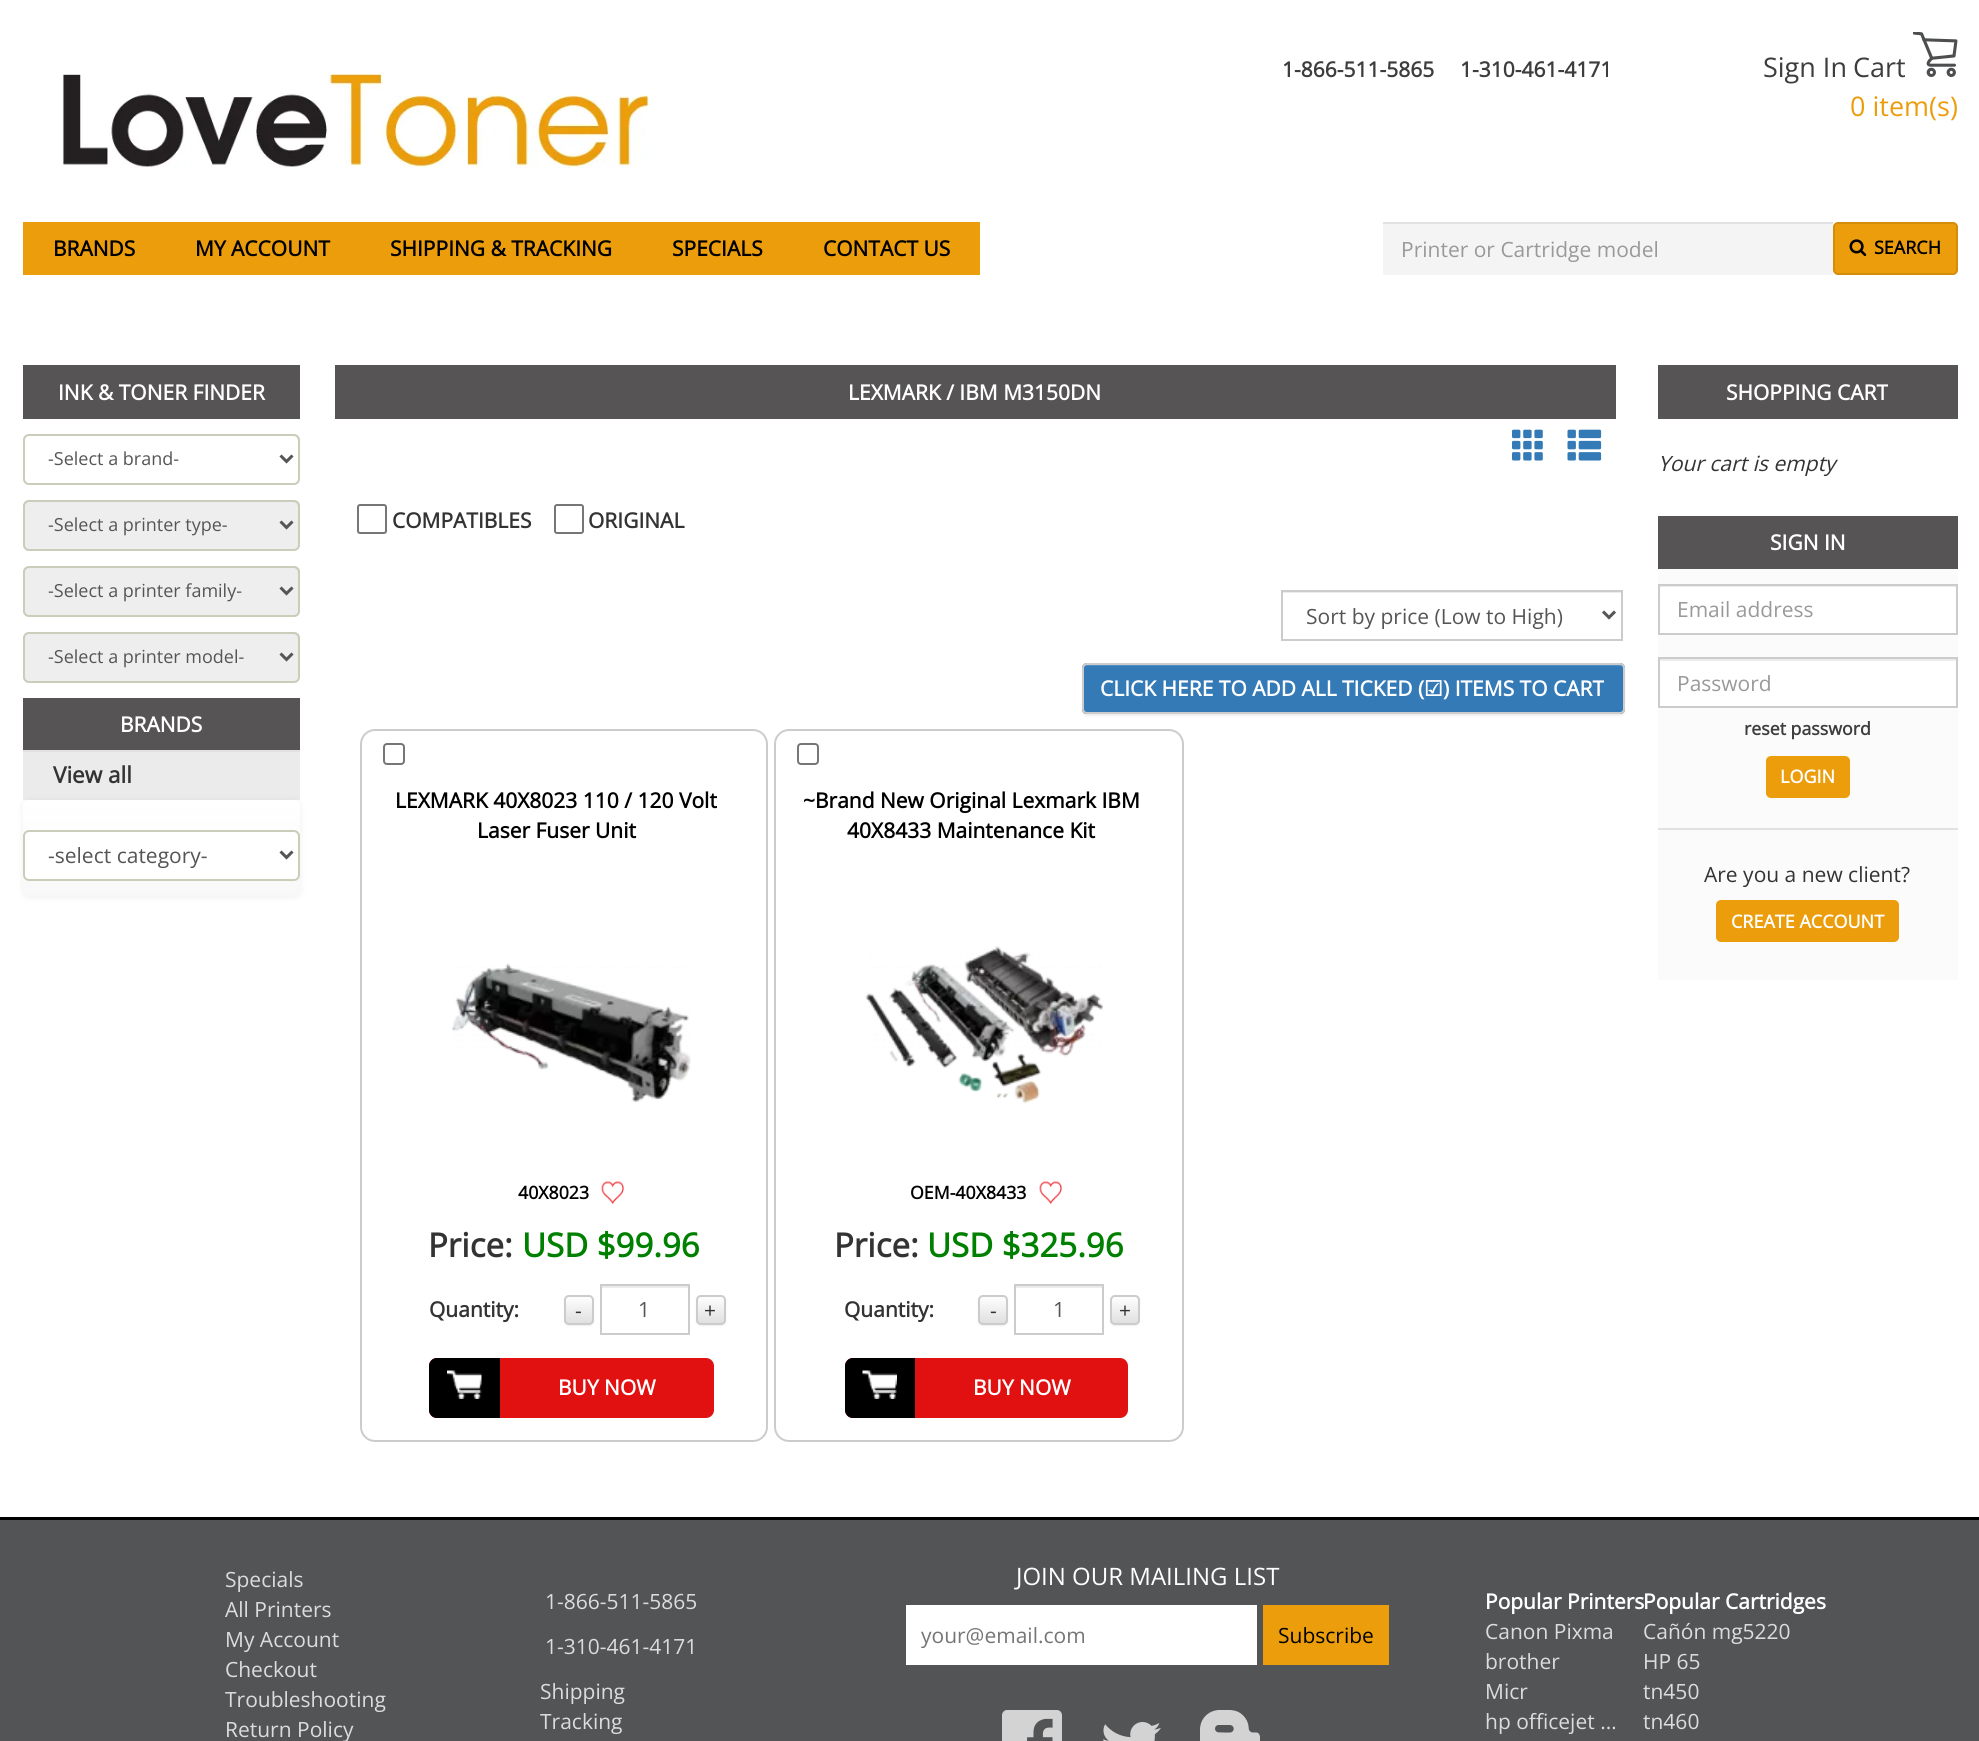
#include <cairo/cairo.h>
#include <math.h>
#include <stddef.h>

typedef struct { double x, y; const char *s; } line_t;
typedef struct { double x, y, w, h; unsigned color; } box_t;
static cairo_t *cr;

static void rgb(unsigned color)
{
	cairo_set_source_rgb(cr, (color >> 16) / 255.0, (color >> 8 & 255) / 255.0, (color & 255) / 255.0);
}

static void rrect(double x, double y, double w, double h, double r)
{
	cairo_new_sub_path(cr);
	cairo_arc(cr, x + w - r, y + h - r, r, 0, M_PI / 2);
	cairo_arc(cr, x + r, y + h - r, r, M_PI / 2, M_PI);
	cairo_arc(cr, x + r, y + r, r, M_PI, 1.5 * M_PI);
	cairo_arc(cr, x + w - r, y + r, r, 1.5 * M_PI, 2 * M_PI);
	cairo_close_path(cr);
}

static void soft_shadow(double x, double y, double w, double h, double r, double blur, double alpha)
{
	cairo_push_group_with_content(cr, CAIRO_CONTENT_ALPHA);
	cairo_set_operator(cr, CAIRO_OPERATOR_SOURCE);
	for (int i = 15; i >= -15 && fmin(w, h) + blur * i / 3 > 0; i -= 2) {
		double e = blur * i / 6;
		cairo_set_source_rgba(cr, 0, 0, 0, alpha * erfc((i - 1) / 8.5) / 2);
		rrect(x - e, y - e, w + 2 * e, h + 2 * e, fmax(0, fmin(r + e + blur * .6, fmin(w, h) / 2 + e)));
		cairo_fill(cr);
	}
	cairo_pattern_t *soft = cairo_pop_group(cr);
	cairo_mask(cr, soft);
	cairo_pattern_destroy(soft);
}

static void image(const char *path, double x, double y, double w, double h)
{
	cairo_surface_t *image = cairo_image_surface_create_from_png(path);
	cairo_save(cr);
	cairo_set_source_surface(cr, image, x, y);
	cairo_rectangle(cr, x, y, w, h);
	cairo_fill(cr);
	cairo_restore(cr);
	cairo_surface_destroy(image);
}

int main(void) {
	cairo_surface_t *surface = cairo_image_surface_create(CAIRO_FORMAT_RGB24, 1979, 1741);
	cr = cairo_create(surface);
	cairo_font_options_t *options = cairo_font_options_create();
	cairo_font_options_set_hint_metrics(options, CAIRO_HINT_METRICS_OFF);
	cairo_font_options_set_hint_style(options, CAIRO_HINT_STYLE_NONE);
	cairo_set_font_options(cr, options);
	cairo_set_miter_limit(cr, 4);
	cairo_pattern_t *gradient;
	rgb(0xffffff);
	cairo_paint(cr);
	image("img/1.png", 1913, 32, 45, 45);
	image("img/2.png", 62, 74, 587, 94);
	{
		static const box_t items[] = {
			{23, 222, 957, 53, 0xec9d0c},
			{1383, 224, 450, 51, 0xf4f4f4},
			{1383, 222, 450, 2, 0xe2e2e2},
		};
		for (size_t i = 0; i < sizeof items / sizeof *items; i++) {
			rgb(items[i].color);
			cairo_rectangle(cr, items[i].x, items[i].y, items[i].w, items[i].h);
			cairo_fill(cr);
		}
	}
	rgb(0xec9d0c);
	rrect(1834, 223, 123, 51, 4);
	cairo_fill_preserve(cr);
	rgb(0xd48d0a);
	cairo_stroke(cr);
	image("img/3.png", 1849, 239, 18, 17);
	rgb(0x565454);
	cairo_rectangle(cr, 23, 365, 277, 54);
	cairo_fill(cr);
	rgb(0xececec);
	cairo_new_path(cr);
	cairo_move_to(cr, 28, 436);
	cairo_line_to(cr, 294, 436);
	cairo_curve_to(cr, 296, 436, 298, 439, 298, 441);
	cairo_line_to(cr, 298, 481);
	cairo_curve_to(cr, 299, 480, 299, 479, 299, 478);
	cairo_line_to(cr, 299, 440);
	cairo_curve_to(cr, 299, 437, 297, 435, 294, 435);
	cairo_line_to(cr, 29, 435);
	cairo_curve_to(cr, 26, 435, 24, 437, 24, 440);
	cairo_line_to(cr, 24, 441);
	cairo_curve_to(cr, 24, 439, 26, 436, 28, 436);
	cairo_close_path(cr);
	cairo_fill(cr);
	rrect(24, 435, 275, 49, 5);
	rgb(0xccccbb);
	cairo_stroke(cr);
	cairo_new_path(cr);
	cairo_move_to(cr, 280.5, 455.5);
	cairo_line_to(cr, 286.5, 461.5);
	cairo_line_to(cr, 292.5, 455.5);
	rgb(0x555555);
	cairo_set_line_width(cr, 3);
	cairo_stroke(cr);
	rgb(0xeeeeee);
	rrect(23, 500, 277, 51, 6);
	cairo_fill(cr);
	rgb(0xdcdcdc);
	cairo_new_path(cr);
	cairo_move_to(cr, 28, 502);
	cairo_line_to(cr, 294, 502);
	cairo_curve_to(cr, 296, 502, 298, 505, 298, 507);
	cairo_line_to(cr, 298, 547);
	cairo_curve_to(cr, 299, 546, 299, 545, 299, 544);
	cairo_line_to(cr, 299, 506);
	cairo_curve_to(cr, 299, 503, 297, 501, 294, 501);
	cairo_line_to(cr, 29, 501);
	cairo_curve_to(cr, 26, 501, 24, 503, 24, 506);
	cairo_line_to(cr, 24, 507);
	cairo_curve_to(cr, 24, 505, 26, 502, 28, 502);
	cairo_close_path(cr);
	cairo_fill(cr);
	rrect(24, 501, 275, 49, 5);
	rgb(0xccccbb);
	cairo_set_line_width(cr, 2);
	cairo_stroke(cr);
	cairo_new_path(cr);
	cairo_move_to(cr, 280.5, 521.5);
	cairo_line_to(cr, 286.5, 527.5);
	cairo_line_to(cr, 292.5, 521.5);
	rgb(0x555555);
	cairo_set_line_width(cr, 3);
	cairo_stroke(cr);
	rgb(0xeeeeee);
	rrect(23, 566, 277, 51, 6);
	cairo_fill(cr);
	rgb(0xdcdcdc);
	cairo_new_path(cr);
	cairo_move_to(cr, 28, 568);
	cairo_line_to(cr, 294, 568);
	cairo_curve_to(cr, 296, 568, 298, 571, 298, 573);
	cairo_line_to(cr, 298, 613);
	cairo_curve_to(cr, 299, 612, 299, 611, 299, 610);
	cairo_line_to(cr, 299, 572);
	cairo_curve_to(cr, 299, 569, 297, 567, 294, 567);
	cairo_line_to(cr, 29, 567);
	cairo_curve_to(cr, 26, 567, 24, 569, 24, 572);
	cairo_line_to(cr, 24, 573);
	cairo_curve_to(cr, 24, 571, 26, 568, 28, 568);
	cairo_close_path(cr);
	cairo_fill(cr);
	rrect(24, 567, 275, 49, 5);
	rgb(0xccccbb);
	cairo_set_line_width(cr, 2);
	cairo_stroke(cr);
	cairo_new_path(cr);
	cairo_move_to(cr, 280.5, 587.5);
	cairo_line_to(cr, 286.5, 593.5);
	cairo_line_to(cr, 292.5, 587.5);
	rgb(0x555555);
	cairo_set_line_width(cr, 3);
	cairo_stroke(cr);
	rgb(0xeeeeee);
	rrect(23, 632, 277, 51, 6);
	cairo_fill(cr);
	rgb(0xdcdcdc);
	cairo_new_path(cr);
	cairo_move_to(cr, 28, 634);
	cairo_line_to(cr, 294, 634);
	cairo_curve_to(cr, 296, 634, 298, 637, 298, 639);
	cairo_line_to(cr, 298, 679);
	cairo_curve_to(cr, 299, 678, 299, 677, 299, 676);
	cairo_line_to(cr, 299, 638);
	cairo_curve_to(cr, 299, 635, 297, 633, 294, 633);
	cairo_line_to(cr, 29, 633);
	cairo_curve_to(cr, 26, 633, 24, 635, 24, 638);
	cairo_line_to(cr, 24, 639);
	cairo_curve_to(cr, 24, 637, 26, 634, 28, 634);
	cairo_close_path(cr);
	cairo_fill(cr);
	rrect(24, 633, 275, 49, 5);
	rgb(0xccccbb);
	cairo_set_line_width(cr, 2);
	cairo_stroke(cr);
	cairo_new_path(cr);
	cairo_move_to(cr, 280.5, 653.5);
	cairo_line_to(cr, 286.5, 659.5);
	cairo_line_to(cr, 292.5, 653.5);
	rgb(0x555555);
	cairo_set_line_width(cr, 3);
	cairo_stroke(cr);
	{
		static const box_t items[] = {
			{23, 698, 277, 52, 0x565454},
			{23, 752, 277, 48, 0xebebeb},
			{23, 750, 277, 2, 0xe1e1e1},
		};
		for (size_t i = 0; i < sizeof items / sizeof *items; i++) {
			rgb(items[i].color);
			cairo_rectangle(cr, items[i].x, items[i].y, items[i].w, items[i].h);
			cairo_fill(cr);
		}
	}
	rgb(0x000000);
	soft_shadow(23, 801, 277, 96, 6, 4, 0.07);
	gradient = cairo_pattern_create_linear(161, 800, 161, 896);
	cairo_pattern_add_color_stop_rgba(gradient, 0, 1, 1, 1, 1);
	cairo_pattern_add_color_stop_rgba(gradient, 1, 0.973, 0.973, 0.973, 1);
	cairo_set_source(cr, gradient);
	cairo_pattern_destroy(gradient);
	rrect(23, 800, 277, 96, 6);
	cairo_fill(cr);
	rgb(0xffffff);
	rrect(23, 830, 277, 51, 6);
	cairo_fill(cr);
	rgb(0xececec);
	cairo_new_path(cr);
	cairo_move_to(cr, 28, 832);
	cairo_line_to(cr, 294, 832);
	cairo_curve_to(cr, 296, 832, 298, 835, 298, 837);
	cairo_line_to(cr, 298, 877);
	cairo_curve_to(cr, 299, 876, 299, 875, 299, 874);
	cairo_line_to(cr, 299, 836);
	cairo_curve_to(cr, 299, 833, 297, 831, 294, 831);
	cairo_line_to(cr, 29, 831);
	cairo_curve_to(cr, 26, 831, 24, 833, 24, 836);
	cairo_line_to(cr, 24, 837);
	cairo_curve_to(cr, 24, 835, 26, 832, 28, 832);
	cairo_close_path(cr);
	cairo_fill(cr);
	rrect(24, 831, 275, 49, 5);
	rgb(0xccccbb);
	cairo_set_line_width(cr, 2);
	cairo_stroke(cr);
	cairo_new_path(cr);
	cairo_move_to(cr, 280.5, 851.5);
	cairo_line_to(cr, 286.5, 857.5);
	cairo_line_to(cr, 292.5, 851.5);
	rgb(0x555555);
	cairo_set_line_width(cr, 3);
	cairo_stroke(cr);
	rgb(0x565454);
	cairo_rectangle(cr, 335, 365, 1281, 54);
	cairo_fill(cr);
	image("img/4.png", 1512, 429, 31, 32);
	image("img/5.png", 1567, 429, 35, 32);
	rrect(358, 505, 28, 28, 2);
	rgb(0x767676);
	cairo_set_line_width(cr, 2);
	cairo_stroke(cr);
	rrect(555, 505, 28, 28, 2);
	cairo_stroke(cr);
	rgb(0xececec);
	cairo_rectangle(cr, 1283, 592, 339, 1);
	cairo_fill(cr);
	cairo_rectangle(cr, 1282, 591, 340, 49);
	rgb(0xcccccc);
	cairo_stroke(cr);
	cairo_new_path(cr);
	cairo_move_to(cr, 1603, 611.5);
	cairo_line_to(cr, 1609, 617.5);
	cairo_line_to(cr, 1615, 611.5);
	rgb(0x555555);
	cairo_set_line_width(cr, 3);
	cairo_stroke(cr);
	rgb(0x000000);
	soft_shadow(1082, 665, 543, 51, 5, 1, 0.07);
	rgb(0x337ab7);
	rrect(1082, 663, 543, 51, 5);
	cairo_fill(cr);
	rgb(0x528ec2);
	cairo_new_path(cr);
	cairo_move_to(cr, 1086, 666);
	cairo_line_to(cr, 1620, 666);
	cairo_curve_to(cr, 1622, 666, 1623, 667, 1623, 669);
	cairo_line_to(cr, 1623, 668);
	cairo_curve_to(cr, 1623, 666, 1622, 665, 1620, 665);
	cairo_line_to(cr, 1086, 665);
	cairo_curve_to(cr, 1084, 665, 1083, 666, 1083, 668);
	cairo_line_to(cr, 1083, 669);
	cairo_curve_to(cr, 1083, 667, 1084, 666, 1086, 666);
	cairo_close_path(cr);
	cairo_fill(cr);
	rrect(1083, 664, 541, 49, 4);
	rgb(0xcccccc);
	cairo_set_line_width(cr, 2);
	cairo_stroke(cr);
	rrect(361, 730, 406, 711, 14);
	cairo_stroke(cr);
	rrect(384, 744, 20, 20, 3);
	rgb(0x767676);
	cairo_stroke(cr);
	image("img/6.png", 451, 963, 240, 139);
	image("img/7.png", 601, 1181, 23, 23);
	rgb(0x000000);
	soft_shadow(564, 1296, 30, 30, 5, 1, 0.07);
	cairo_save(cr);
	rrect(564, 1295, 30, 30, 5);
	cairo_clip(cr);
	gradient = cairo_pattern_create_linear(579, 1296, 579, 1323);
	cairo_pattern_add_color_stop_rgba(gradient, 0, 1, 1, 1, 1);
	cairo_pattern_add_color_stop_rgba(gradient, 1, 0.878, 0.878, 0.878, 1);
	cairo_set_source(cr, gradient);
	cairo_pattern_destroy(gradient);
	cairo_rectangle(cr, 564, 1296, 30, 27);
	cairo_fill(cr);
	cairo_restore(cr);
	cairo_set_source_rgba(cr, 1, 1, 1, 0.15);
	cairo_new_path(cr);
	cairo_move_to(cr, 568, 1298);
	cairo_line_to(cr, 590.5, 1298);
	cairo_curve_to(cr, 593, 1298.5, 592, 1302, 592, 1303.5);
	cairo_line_to(cr, 592, 1322.5);
	cairo_curve_to(cr, 593.5, 1321, 593, 1318, 593, 1316.5);
	cairo_line_to(cr, 593, 1309.5);
	cairo_curve_to(cr, 593, 1294, 595, 1296, 579.5, 1296);
	cairo_line_to(cr, 572.5, 1296);
	cairo_curve_to(cr, 568.5, 1296, 566, 1295.5, 566, 1300);
	cairo_curve_to(cr, 566, 1299, 567, 1298, 568, 1298);
	cairo_close_path(cr);
	cairo_fill(cr);
	rrect(565, 1296, 28, 28, 4);
	rgb(0xcccccc);
	cairo_stroke(cr);
	rgb(0xececec);
	cairo_rectangle(cr, 602, 1286, 87, 2);
	cairo_fill(cr);
	cairo_rectangle(cr, 601, 1285, 88, 49);
	rgb(0xcccccc);
	cairo_stroke(cr);
	rgb(0x000000);
	soft_shadow(696, 1296, 30, 30, 5, 1, 0.07);
	cairo_save(cr);
	rrect(696, 1295, 30, 30, 5);
	cairo_clip(cr);
	gradient = cairo_pattern_create_linear(711, 1296, 711, 1323);
	cairo_pattern_add_color_stop_rgba(gradient, 0, 1, 1, 1, 1);
	cairo_pattern_add_color_stop_rgba(gradient, 1, 0.878, 0.878, 0.878, 1);
	cairo_set_source(cr, gradient);
	cairo_pattern_destroy(gradient);
	cairo_rectangle(cr, 696, 1296, 30, 27);
	cairo_fill(cr);
	cairo_restore(cr);
	cairo_set_source_rgba(cr, 1, 1, 1, 0.15);
	cairo_new_path(cr);
	cairo_move_to(cr, 700, 1298);
	cairo_line_to(cr, 722.5, 1298);
	cairo_curve_to(cr, 725, 1298.5, 724, 1302, 724, 1303.5);
	cairo_line_to(cr, 724, 1322.5);
	cairo_curve_to(cr, 725.5, 1321, 725, 1318, 725, 1316.5);
	cairo_line_to(cr, 725, 1309.5);
	cairo_curve_to(cr, 725, 1294, 727, 1296, 711.5, 1296);
	cairo_line_to(cr, 704.5, 1296);
	cairo_curve_to(cr, 700.5, 1296, 698, 1295.5, 698, 1300);
	cairo_curve_to(cr, 698, 1299, 699, 1298, 700, 1298);
	cairo_close_path(cr);
	cairo_fill(cr);
	rrect(697, 1296, 28, 28, 4);
	rgb(0xcccccc);
	cairo_stroke(cr);
	rgb(0xe11111);
	rrect(429, 1358, 285, 60, 8);
	cairo_fill(cr);
	rgb(0x000000);
	cairo_new_path(cr);
	cairo_move_to(cr, 437, 1358);
	cairo_line_to(cr, 500, 1358);
	cairo_line_to(cr, 500, 1418);
	cairo_line_to(cr, 437, 1418);
	cairo_curve_to(cr, 432.5, 1418, 429, 1414.5, 429, 1410);
	cairo_line_to(cr, 429, 1366);
	cairo_curve_to(cr, 429, 1361.5, 432.5, 1358, 437, 1358);
	cairo_close_path(cr);
	cairo_fill(cr);
	image("img/8.png", 447, 1370, 35, 29);
	rrect(775, 730, 408, 711, 14);
	rgb(0xcccccc);
	cairo_stroke(cr);
	rrect(798, 744, 20, 20, 3);
	rgb(0x767676);
	cairo_stroke(cr);
	image("img/9.png", 865, 946, 238, 158);
	image("img/10.png", 1039, 1181, 23, 23);
	rgb(0x000000);
	soft_shadow(978, 1296, 30, 30, 5, 1, 0.07);
	cairo_save(cr);
	rrect(978, 1295, 30, 30, 5);
	cairo_clip(cr);
	gradient = cairo_pattern_create_linear(993, 1296, 993, 1323);
	cairo_pattern_add_color_stop_rgba(gradient, 0, 1, 1, 1, 1);
	cairo_pattern_add_color_stop_rgba(gradient, 1, 0.878, 0.878, 0.878, 1);
	cairo_set_source(cr, gradient);
	cairo_pattern_destroy(gradient);
	cairo_rectangle(cr, 978, 1296, 30, 27);
	cairo_fill(cr);
	cairo_restore(cr);
	cairo_set_source_rgba(cr, 1, 1, 1, 0.15);
	cairo_new_path(cr);
	cairo_move_to(cr, 982, 1298);
	cairo_line_to(cr, 1004.5, 1298);
	cairo_curve_to(cr, 1007, 1298.5, 1006, 1302, 1006, 1303.5);
	cairo_line_to(cr, 1006, 1322.5);
	cairo_curve_to(cr, 1007.5, 1321, 1007, 1318, 1007, 1316.5);
	cairo_line_to(cr, 1007, 1309.5);
	cairo_curve_to(cr, 1007, 1294, 1009, 1296, 993.5, 1296);
	cairo_line_to(cr, 986.5, 1296);
	cairo_curve_to(cr, 982.5, 1296, 980, 1295.5, 980, 1300);
	cairo_curve_to(cr, 980, 1299, 981, 1298, 982, 1298);
	cairo_close_path(cr);
	cairo_fill(cr);
	rrect(979, 1296, 28, 28, 4);
	rgb(0xcccccc);
	cairo_stroke(cr);
	rgb(0xececec);
	cairo_rectangle(cr, 1016, 1286, 87, 2);
	cairo_fill(cr);
	cairo_rectangle(cr, 1015, 1285, 88, 49);
	rgb(0xcccccc);
	cairo_stroke(cr);
	rgb(0x000000);
	soft_shadow(1110, 1296, 30, 30, 5, 1, 0.07);
	cairo_save(cr);
	rrect(1110, 1295, 30, 30, 5);
	cairo_clip(cr);
	gradient = cairo_pattern_create_linear(1125, 1296, 1125, 1323);
	cairo_pattern_add_color_stop_rgba(gradient, 0, 1, 1, 1, 1);
	cairo_pattern_add_color_stop_rgba(gradient, 1, 0.878, 0.878, 0.878, 1);
	cairo_set_source(cr, gradient);
	cairo_pattern_destroy(gradient);
	cairo_rectangle(cr, 1110, 1296, 30, 27);
	cairo_fill(cr);
	cairo_restore(cr);
	cairo_set_source_rgba(cr, 1, 1, 1, 0.15);
	cairo_new_path(cr);
	cairo_move_to(cr, 1114, 1298);
	cairo_line_to(cr, 1136.5, 1298);
	cairo_curve_to(cr, 1139, 1298.5, 1138, 1302, 1138, 1303.5);
	cairo_line_to(cr, 1138, 1322.5);
	cairo_curve_to(cr, 1139.5, 1321, 1139, 1318, 1139, 1316.5);
	cairo_line_to(cr, 1139, 1309.5);
	cairo_curve_to(cr, 1139, 1294, 1141, 1296, 1125.5, 1296);
	cairo_line_to(cr, 1118.5, 1296);
	cairo_curve_to(cr, 1114.5, 1296, 1112, 1295.5, 1112, 1300);
	cairo_curve_to(cr, 1112, 1299, 1113, 1298, 1114, 1298);
	cairo_close_path(cr);
	cairo_fill(cr);
	rrect(1111, 1296, 28, 28, 4);
	rgb(0xcccccc);
	cairo_stroke(cr);
	rgb(0xe11111);
	rrect(845, 1358, 283, 60, 8);
	cairo_fill(cr);
	rgb(0x000000);
	cairo_new_path(cr);
	cairo_move_to(cr, 853, 1358);
	cairo_line_to(cr, 915, 1358);
	cairo_line_to(cr, 915, 1418);
	cairo_line_to(cr, 853, 1418);
	cairo_curve_to(cr, 848.5, 1418, 845, 1414.5, 845, 1410);
	cairo_line_to(cr, 845, 1366);
	cairo_curve_to(cr, 845, 1361.5, 848.5, 1358, 853, 1358);
	cairo_close_path(cr);
	cairo_fill(cr);
	image("img/11.png", 862, 1370, 35, 29);
	{
		static const box_t items[] = {
			{1658, 365, 300, 54, 0x565454},
			{1658, 516, 300, 53, 0x565454},
			{1658, 569, 300, 411, 0xfbfbfb},
			{1660, 587, 296, 46, 0xffffff},
			{1659, 586, 297, 1, 0xececec},
		};
		for (size_t i = 0; i < sizeof items / sizeof *items; i++) {
			rgb(items[i].color);
			cairo_rectangle(cr, items[i].x, items[i].y, items[i].w, items[i].h);
			cairo_fill(cr);
		}
	}
	cairo_rectangle(cr, 1659, 585, 298, 49);
	rgb(0xcccccc);
	cairo_stroke(cr);
	rgb(0xffffff);
	cairo_rectangle(cr, 1660, 661, 296, 45);
	cairo_fill(cr);
	rgb(0xececec);
	cairo_rectangle(cr, 1659, 659, 297, 2);
	cairo_fill(cr);
	cairo_rectangle(cr, 1659, 658, 298, 49);
	rgb(0xcccccc);
	cairo_stroke(cr);
	rgb(0xec9d0c);
	rrect(1766, 756, 84, 42, 5);
	cairo_fill(cr);
	rgb(0xe1e1e1);
	cairo_rectangle(cr, 1658, 828, 300, 2);
	cairo_fill(cr);
	rgb(0xec9d0c);
	rrect(1716, 900, 183, 42, 5);
	cairo_fill(cr);
	{
		static const box_t items[] = {
			{0, 1520, 1979, 221, 0x535456},
			{0, 1517, 1979, 3, 0x000000},
			{906, 1605, 351, 60, 0xffffff},
			{1263, 1605, 126, 60, 0xec9d0c},
		};
		for (size_t i = 0; i < sizeof items / sizeof *items; i++) {
			rgb(items[i].color);
			cairo_rectangle(cr, items[i].x, items[i].y, items[i].w, items[i].h);
			cairo_fill(cr);
		}
	}
	image("img/12.png", 1002, 1710, 60, 31);
	image("img/13.png", 1103, 1722, 58, 19);
	image("img/14.png", 1200, 1710, 60, 31);
	cairo_select_font_face(cr, "Open Sans", CAIRO_FONT_SLANT_NORMAL, CAIRO_FONT_WEIGHT_BOLD);
	cairo_set_font_size(cr, 21);
	rgb(0x3d3d3d);
	cairo_move_to(cr, 1282, 77);
	cairo_show_text(cr, "1-866-511-5865");
	cairo_move_to(cr, 1460, 77);
	cairo_show_text(cr, "1-310-461-4171");
	cairo_select_font_face(cr, "Open Sans", CAIRO_FONT_SLANT_NORMAL, CAIRO_FONT_WEIGHT_NORMAL);
	cairo_set_font_size(cr, 27);
	cairo_move_to(cr, 1763, 77);
	cairo_show_text(cr, "Sign In");
	cairo_move_to(cr, 1853, 77);
	cairo_show_text(cr, "Cart");
	rgb(0xec9d0c);
	cairo_move_to(cr, 1850, 116);
	cairo_show_text(cr, "0 item(s)");
	cairo_select_font_face(cr, "Open Sans", CAIRO_FONT_SLANT_NORMAL, CAIRO_FONT_WEIGHT_BOLD);
	cairo_set_font_size(cr, 21);
	rgb(0x000000);
	{
		static const line_t items[] = {
			{53, 256, "BRANDS"},
			{195, 256, "MY ACCOUNT"},
			{390, 256, "SHIPPING & TRACKING"},
			{672, 256, "SPECIALS"},
			{823, 256, "CONTACT US"},
		};
		for (size_t i = 0; i < sizeof items / sizeof *items; i++) {
			cairo_move_to(cr, items[i].x, items[i].y);
			cairo_show_text(cr, items[i].s);
		}
	}
	cairo_select_font_face(cr, "Open Sans", CAIRO_FONT_SLANT_NORMAL, CAIRO_FONT_WEIGHT_NORMAL);
	rgb(0x999999);
	cairo_move_to(cr, 1401, 257);
	cairo_show_text(cr, "Printer or Cartridge model");
	cairo_select_font_face(cr, "Open Sans", CAIRO_FONT_SLANT_NORMAL, CAIRO_FONT_WEIGHT_BOLD);
	cairo_set_font_size(cr, 18);
	rgb(0x000000);
	cairo_move_to(cr, 1874, 254);
	cairo_show_text(cr, "SEARCH");
	cairo_set_font_size(cr, 21);
	rgb(0xffffff);
	cairo_move_to(cr, 58, 400);
	cairo_show_text(cr, "INK & TONER FINDER");
	cairo_select_font_face(cr, "Open Sans", CAIRO_FONT_SLANT_NORMAL, CAIRO_FONT_WEIGHT_NORMAL);
	cairo_set_font_size(cr, 18);
	rgb(0x555555);
	{
		static const line_t items[] = {
			{48, 465, "-Select a brand-"},
			{48, 531, "-Select a printer type-"},
			{48, 597, "-Select a printer family-"},
			{48, 663, "-Select a printer model-"},
		};
		for (size_t i = 0; i < sizeof items / sizeof *items; i++) {
			cairo_move_to(cr, items[i].x, items[i].y);
			cairo_show_text(cr, items[i].s);
		}
	}
	cairo_select_font_face(cr, "Open Sans", CAIRO_FONT_SLANT_NORMAL, CAIRO_FONT_WEIGHT_BOLD);
	cairo_set_font_size(cr, 21);
	rgb(0xffffff);
	cairo_move_to(cr, 120, 732);
	cairo_show_text(cr, "BRANDS");
	cairo_set_font_size(cr, 22.5);
	rgb(0x333333);
	cairo_move_to(cr, 53, 783);
	cairo_show_text(cr, "View all");
	cairo_select_font_face(cr, "Open Sans", CAIRO_FONT_SLANT_NORMAL, CAIRO_FONT_WEIGHT_NORMAL);
	cairo_set_font_size(cr, 21);
	rgb(0x555555);
	cairo_move_to(cr, 48, 863);
	cairo_show_text(cr, "-select category-");
	cairo_select_font_face(cr, "Open Sans", CAIRO_FONT_SLANT_NORMAL, CAIRO_FONT_WEIGHT_BOLD);
	rgb(0xffffff);
	cairo_move_to(cr, 848, 400);
	cairo_show_text(cr, "LEXMARK / IBM M3150DN");
	rgb(0x333333);
	cairo_move_to(cr, 392, 528);
	cairo_show_text(cr, "COMPATIBLES");
	cairo_move_to(cr, 588, 528);
	cairo_show_text(cr, "ORIGINAL");
	cairo_select_font_face(cr, "Open Sans", CAIRO_FONT_SLANT_NORMAL, CAIRO_FONT_WEIGHT_NORMAL);
	rgb(0x555555);
	cairo_move_to(cr, 1306, 624);
	cairo_show_text(cr, "Sort by price (Low to High)");
	cairo_select_font_face(cr, "Open Sans", CAIRO_FONT_SLANT_NORMAL, CAIRO_FONT_WEIGHT_BOLD);
	rgb(0xffffff);
	cairo_move_to(cr, 1100, 696);
	cairo_show_text(cr, "CLICK HERE TO ADD ALL TICKED (");
	cairo_select_font_face(cr, "DejaVu Sans", CAIRO_FONT_SLANT_NORMAL, CAIRO_FONT_WEIGHT_BOLD);
	cairo_move_to(cr, 1424, 696);
	cairo_show_text(cr, "☑");
	cairo_select_font_face(cr, "Open Sans", CAIRO_FONT_SLANT_NORMAL, CAIRO_FONT_WEIGHT_BOLD);
	cairo_move_to(cr, 1443, 696);
	cairo_show_text(cr, ") ITEMS TO CART");
	rgb(0x000000);
	cairo_move_to(cr, 395, 808);
	cairo_show_text(cr, "LEXMARK 40X8023 110 / 120 Volt");
	cairo_move_to(cr, 477, 838);
	cairo_show_text(cr, "Laser Fuser Unit");
	cairo_set_font_size(cr, 17.75);
	cairo_move_to(cr, 518, 1199);
	cairo_show_text(cr, "40X8023");
	cairo_set_font_size(cr, 33);
	rgb(0x333333);
	cairo_move_to(cr, 428, 1257);
	cairo_show_text(cr, "Price:");
	rgb(0x008000);
	cairo_move_to(cr, 522, 1257);
	cairo_show_text(cr, "USD $99.96");
	cairo_set_font_size(cr, 21);
	rgb(0x333333);
	cairo_move_to(cr, 429, 1317);
	cairo_show_text(cr, "Quantity:");
	cairo_select_font_face(cr, "Open Sans", CAIRO_FONT_SLANT_NORMAL, CAIRO_FONT_WEIGHT_NORMAL);
	cairo_move_to(cr, 575, 1318);
	cairo_show_text(cr, "-");
	rgb(0x555555);
	cairo_move_to(cr, 638, 1317);
	cairo_show_text(cr, "1");
	rgb(0x333333);
	cairo_move_to(cr, 704, 1318);
	cairo_show_text(cr, "+");
	cairo_select_font_face(cr, "Open Sans", CAIRO_FONT_SLANT_NORMAL, CAIRO_FONT_WEIGHT_BOLD);
	rgb(0xffffff);
	cairo_move_to(cr, 558, 1395);
	cairo_show_text(cr, "BUY NOW");
	rgb(0x000000);
	cairo_move_to(cr, 803, 808);
	cairo_show_text(cr, "~Brand New Original Lexmark IBM");
	cairo_move_to(cr, 847, 838);
	cairo_show_text(cr, "40X8433 Maintenance Kit");
	cairo_set_font_size(cr, 17.75);
	cairo_move_to(cr, 910, 1199);
	cairo_show_text(cr, "OEM-40X8433");
	cairo_set_font_size(cr, 33);
	rgb(0x333333);
	cairo_move_to(cr, 834, 1257);
	cairo_show_text(cr, "Price:");
	rgb(0x008000);
	cairo_move_to(cr, 927, 1257);
	cairo_show_text(cr, "USD $325.96");
	cairo_set_font_size(cr, 21);
	rgb(0x333333);
	cairo_move_to(cr, 844, 1317);
	cairo_show_text(cr, "Quantity:");
	cairo_select_font_face(cr, "Open Sans", CAIRO_FONT_SLANT_NORMAL, CAIRO_FONT_WEIGHT_NORMAL);
	cairo_move_to(cr, 990, 1318);
	cairo_show_text(cr, "-");
	rgb(0x555555);
	cairo_move_to(cr, 1053, 1317);
	cairo_show_text(cr, "1");
	rgb(0x333333);
	cairo_move_to(cr, 1119, 1318);
	cairo_show_text(cr, "+");
	cairo_select_font_face(cr, "Open Sans", CAIRO_FONT_SLANT_NORMAL, CAIRO_FONT_WEIGHT_BOLD);
	rgb(0xffffff);
	cairo_move_to(cr, 973, 1395);
	cairo_show_text(cr, "BUY NOW");
	cairo_move_to(cr, 1726, 400);
	cairo_show_text(cr, "SHOPPING CART");
	cairo_select_font_face(cr, "Open Sans", CAIRO_FONT_SLANT_ITALIC, CAIRO_FONT_WEIGHT_NORMAL);
	rgb(0x333333);
	cairo_move_to(cr, 1658, 471);
	cairo_show_text(cr, "Your cart is empty");
	cairo_select_font_face(cr, "Open Sans", CAIRO_FONT_SLANT_NORMAL, CAIRO_FONT_WEIGHT_BOLD);
	rgb(0xffffff);
	cairo_move_to(cr, 1770, 550);
	cairo_show_text(cr, "SIGN IN");
	cairo_select_font_face(cr, "Open Sans", CAIRO_FONT_SLANT_NORMAL, CAIRO_FONT_WEIGHT_NORMAL);
	rgb(0x999999);
	cairo_move_to(cr, 1677, 617);
	cairo_show_text(cr, "Email address");
	cairo_move_to(cr, 1677, 691);
	cairo_show_text(cr, "Password");
	cairo_select_font_face(cr, "Open Sans", CAIRO_FONT_SLANT_NORMAL, CAIRO_FONT_WEIGHT_BOLD);
	cairo_set_font_size(cr, 17.75);
	rgb(0x3d3d3d);
	cairo_move_to(cr, 1744, 735);
	cairo_show_text(cr, "reset password");
	cairo_set_font_size(cr, 18);
	rgb(0xffffff);
	cairo_move_to(cr, 1780, 783);
	cairo_show_text(cr, "LOGIN");
	cairo_select_font_face(cr, "Open Sans", CAIRO_FONT_SLANT_NORMAL, CAIRO_FONT_WEIGHT_NORMAL);
	cairo_set_font_size(cr, 21);
	rgb(0x333333);
	cairo_move_to(cr, 1704, 882);
	cairo_show_text(cr, "Are you a new client?");
	cairo_select_font_face(cr, "Open Sans", CAIRO_FONT_SLANT_NORMAL, CAIRO_FONT_WEIGHT_BOLD);
	cairo_set_font_size(cr, 18);
	rgb(0xffffff);
	cairo_move_to(cr, 1731, 928);
	cairo_show_text(cr, "CREATE ACCOUNT");
	cairo_select_font_face(cr, "Open Sans", CAIRO_FONT_SLANT_NORMAL, CAIRO_FONT_WEIGHT_NORMAL);
	cairo_set_font_size(cr, 21);
	rgb(0xdcdcdc);
	{
		static const line_t items[] = {
			{225, 1587, "Specials"},
			{225, 1617, "All Printers"},
			{225, 1647, "My Account"},
			{225, 1677, "Checkout"},
			{225, 1707, "Troubleshooting"},
			{225, 1737, "Return Policy"},
			{545, 1609, "1-866-511-5865"},
			{545, 1654, "1-310-461-4171"},
			{540, 1699, "Shipping"},
			{540, 1729, "Tracking"},
		};
		for (size_t i = 0; i < sizeof items / sizeof *items; i++) {
			cairo_move_to(cr, items[i].x, items[i].y);
			cairo_show_text(cr, items[i].s);
		}
	}
	cairo_set_font_size(cr, 24);
	rgb(0xffffff);
	cairo_move_to(cr, 1016, 1585);
	cairo_show_text(cr, "JOIN OUR MAILING LIST");
	cairo_set_font_size(cr, 21);
	rgb(0x757575);
	cairo_move_to(cr, 921, 1643);
	cairo_show_text(cr, "your@email.com");
	rgb(0x000000);
	cairo_move_to(cr, 1278, 1643);
	cairo_show_text(cr, "Subscribe");
	cairo_select_font_face(cr, "Open Sans", CAIRO_FONT_SLANT_NORMAL, CAIRO_FONT_WEIGHT_BOLD);
	rgb(0xffffff);
	cairo_move_to(cr, 1485, 1609);
	cairo_show_text(cr, "Popular Printers");
	cairo_select_font_face(cr, "Open Sans", CAIRO_FONT_SLANT_NORMAL, CAIRO_FONT_WEIGHT_NORMAL);
	rgb(0xdcdcdc);
	{
		static const line_t items[] = {
			{1485, 1639, "Canon Pixma"},
			{1485, 1669, "brother"},
			{1485, 1699, "Micr"},
			{1485, 1729, "hp officejet ..."},
		};
		for (size_t i = 0; i < sizeof items / sizeof *items; i++) {
			cairo_move_to(cr, items[i].x, items[i].y);
			cairo_show_text(cr, items[i].s);
		}
	}
	cairo_select_font_face(cr, "Open Sans", CAIRO_FONT_SLANT_NORMAL, CAIRO_FONT_WEIGHT_BOLD);
	rgb(0xffffff);
	cairo_move_to(cr, 1643, 1609);
	cairo_show_text(cr, "Popular Cartridges");
	cairo_select_font_face(cr, "Open Sans", CAIRO_FONT_SLANT_NORMAL, CAIRO_FONT_WEIGHT_NORMAL);
	rgb(0xdcdcdc);
	{
		static const line_t items[] = {
			{1643, 1639, "Cañón mg5220"},
			{1643, 1669, "HP 65"},
			{1643, 1699, "tn450"},
			{1643, 1729, "tn460"},
		};
		for (size_t i = 0; i < sizeof items / sizeof *items; i++) {
			cairo_move_to(cr, items[i].x, items[i].y);
			cairo_show_text(cr, items[i].s);
		}
	}
	cairo_surface_write_to_png(surface, "page.png");
	cairo_font_options_destroy(options);
	cairo_destroy(cr);
	cairo_surface_destroy(surface);
	return 0;
}
